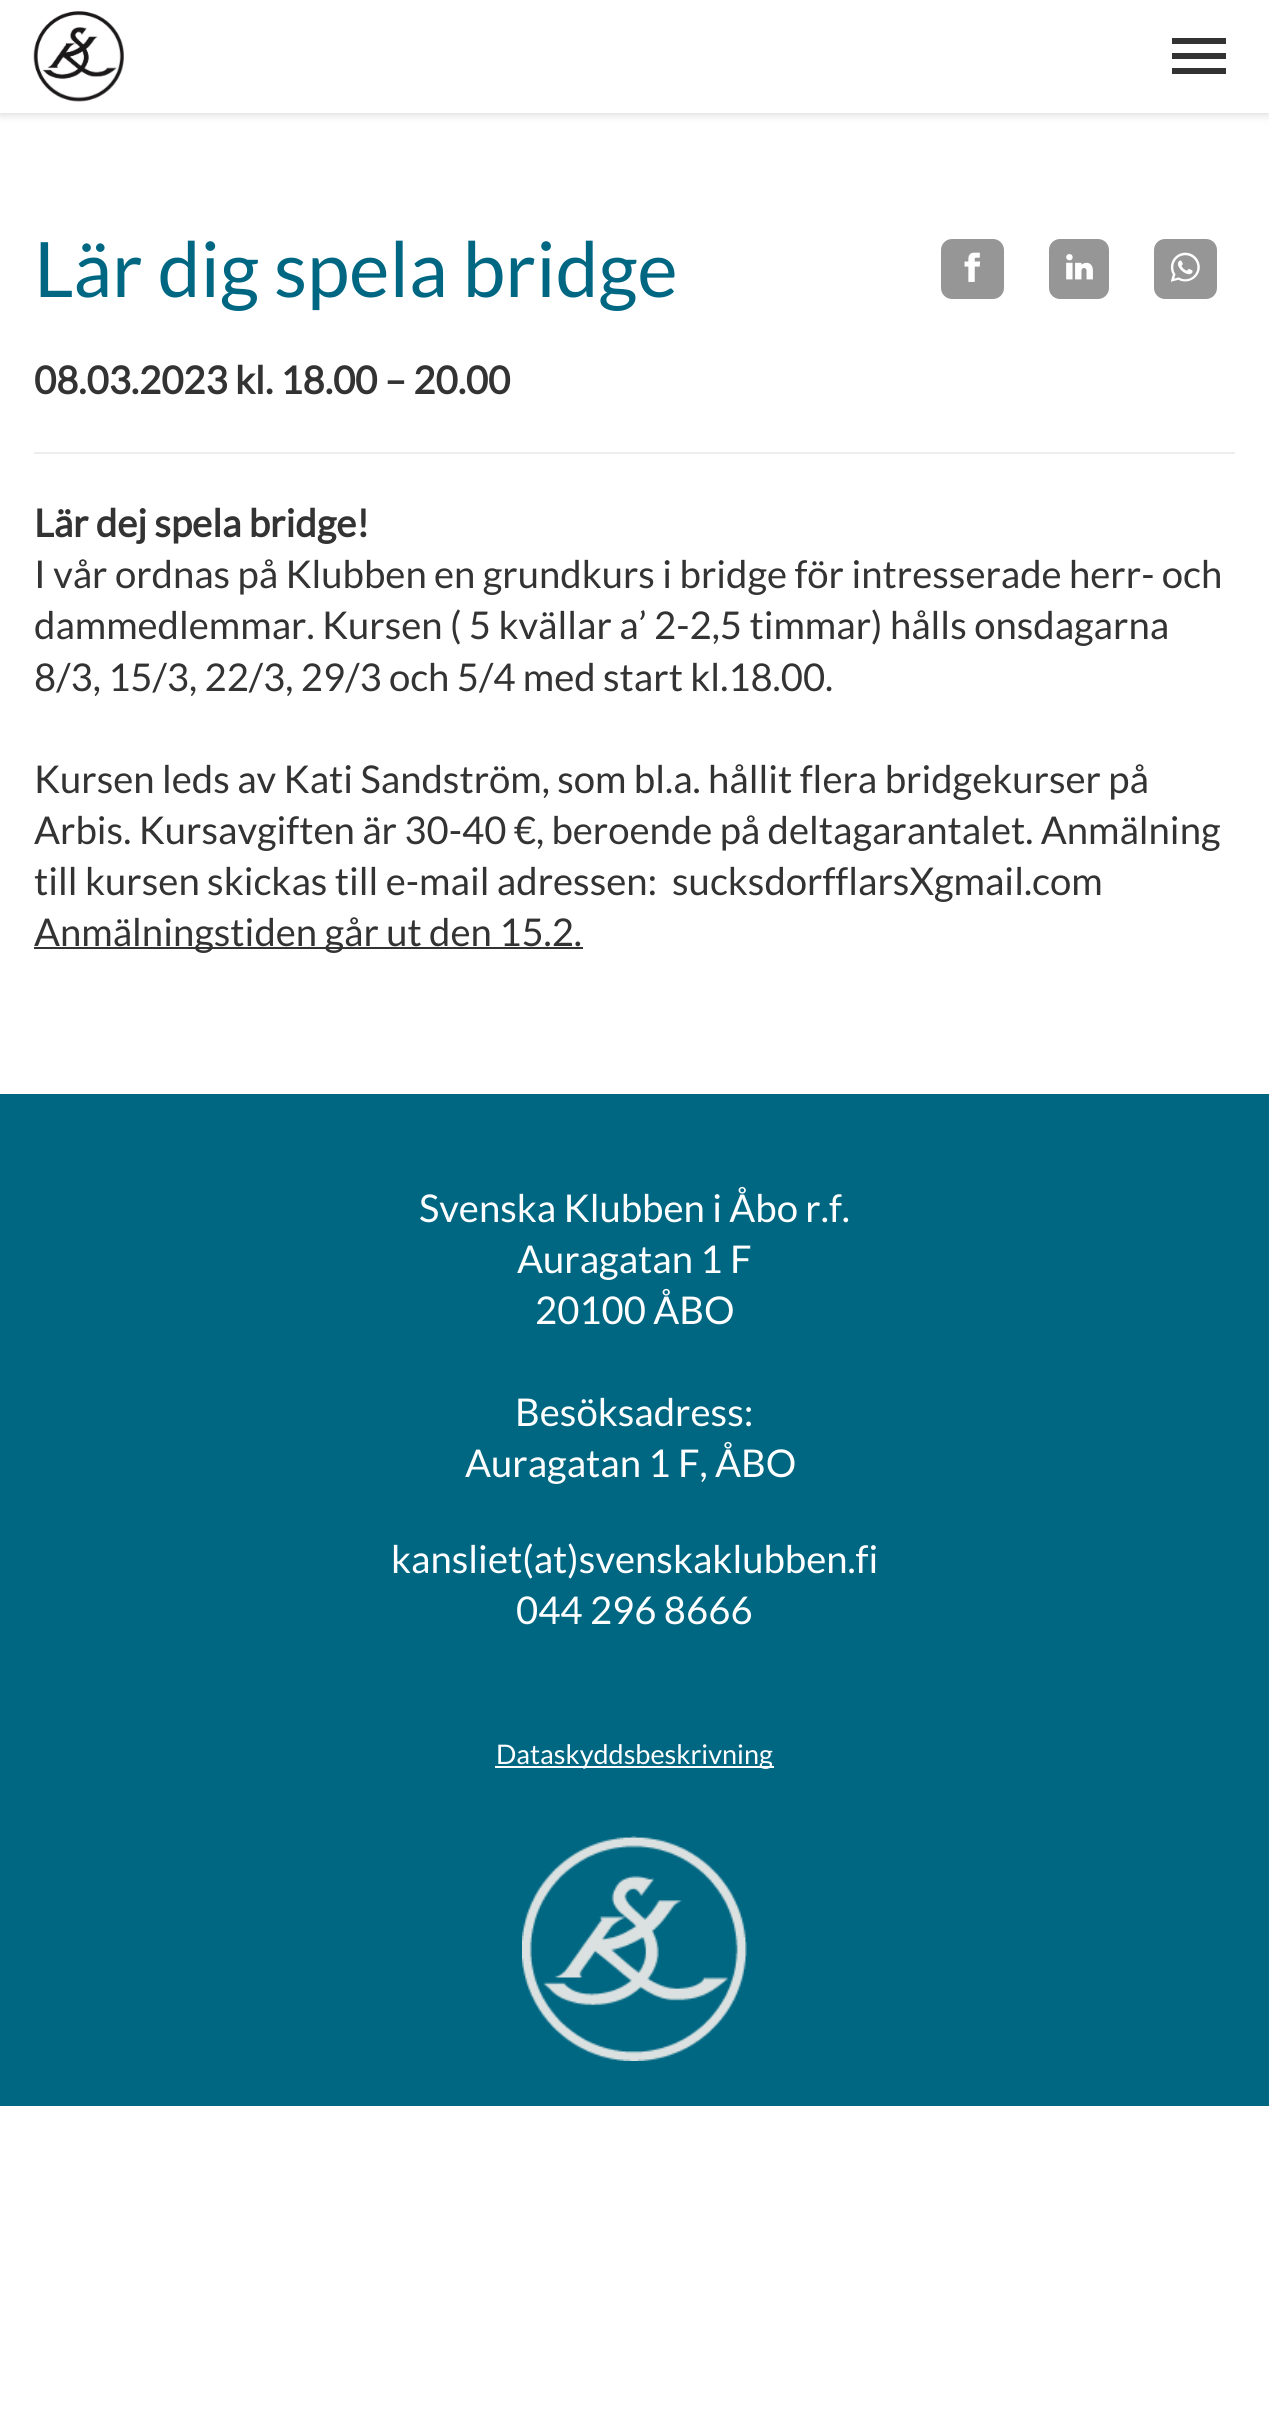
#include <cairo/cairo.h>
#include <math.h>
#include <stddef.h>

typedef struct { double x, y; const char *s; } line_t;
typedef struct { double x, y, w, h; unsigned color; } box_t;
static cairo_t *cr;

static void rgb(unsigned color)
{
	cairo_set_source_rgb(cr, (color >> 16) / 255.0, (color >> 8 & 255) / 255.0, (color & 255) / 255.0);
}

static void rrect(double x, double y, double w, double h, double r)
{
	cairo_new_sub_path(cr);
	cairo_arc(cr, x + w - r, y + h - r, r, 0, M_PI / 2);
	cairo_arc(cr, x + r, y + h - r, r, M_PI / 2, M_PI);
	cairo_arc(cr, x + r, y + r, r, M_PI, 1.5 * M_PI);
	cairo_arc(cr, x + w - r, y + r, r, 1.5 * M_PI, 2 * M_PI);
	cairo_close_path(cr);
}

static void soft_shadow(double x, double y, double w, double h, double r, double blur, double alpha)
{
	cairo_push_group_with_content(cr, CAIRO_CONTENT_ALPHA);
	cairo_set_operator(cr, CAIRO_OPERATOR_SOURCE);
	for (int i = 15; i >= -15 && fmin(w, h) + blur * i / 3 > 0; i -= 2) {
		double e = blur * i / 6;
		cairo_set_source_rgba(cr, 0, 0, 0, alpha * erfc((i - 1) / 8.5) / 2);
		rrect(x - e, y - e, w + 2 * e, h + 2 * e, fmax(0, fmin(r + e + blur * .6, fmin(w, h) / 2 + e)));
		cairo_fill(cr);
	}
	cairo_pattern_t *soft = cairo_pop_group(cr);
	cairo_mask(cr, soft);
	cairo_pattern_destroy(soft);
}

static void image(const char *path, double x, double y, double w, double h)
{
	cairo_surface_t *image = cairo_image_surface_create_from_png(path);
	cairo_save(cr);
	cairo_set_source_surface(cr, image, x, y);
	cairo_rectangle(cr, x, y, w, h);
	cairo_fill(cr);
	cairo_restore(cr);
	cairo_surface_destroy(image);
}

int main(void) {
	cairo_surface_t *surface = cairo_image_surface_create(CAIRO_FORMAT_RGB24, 1269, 2414);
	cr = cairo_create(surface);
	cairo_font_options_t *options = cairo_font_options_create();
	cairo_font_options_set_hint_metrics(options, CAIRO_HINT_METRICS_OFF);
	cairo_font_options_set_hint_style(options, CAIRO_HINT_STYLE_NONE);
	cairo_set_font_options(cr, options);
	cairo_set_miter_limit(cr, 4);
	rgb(0xffffff);
	cairo_paint(cr);
	rgb(0x000000);
	soft_shadow(0, 0, 1269, 113, 0, 5.5, 0.2);
	rgb(0xffffff);
	cairo_rectangle(cr, 0, 0, 1269, 113);
	cairo_fill(cr);
	image("img/1.png", 33, 11, 91, 91);
	rgb(0x333333);
	cairo_new_path(cr);
	cairo_move_to(cr, 1172, 38);
	cairo_line_to(cr, 1226, 38);
	cairo_line_to(cr, 1226, 44);
	cairo_line_to(cr, 1172, 44);
	cairo_close_path(cr);
	cairo_move_to(cr, 1172, 59);
	cairo_line_to(cr, 1172, 53);
	cairo_line_to(cr, 1226, 53);
	cairo_line_to(cr, 1226, 59);
	cairo_close_path(cr);
	cairo_move_to(cr, 1172, 74);
	cairo_line_to(cr, 1172, 68);
	cairo_line_to(cr, 1226, 68);
	cairo_line_to(cr, 1226, 74);
	cairo_close_path(cr);
	cairo_fill(cr);
	rgb(0x969696);
	rrect(941, 239, 63, 60, 11);
	cairo_fill(cr);
	image("img/2.png", 964, 252, 17, 30);
	rrect(1049, 239, 60, 60, 11);
	cairo_fill(cr);
	image("img/3.png", 1066, 254, 27, 26);
	rrect(1154, 239, 63, 60, 11);
	cairo_fill(cr);
	image("img/4.png", 1170, 252, 30, 30);
	{
		static const box_t items[] = {
			{34, 452, 1201, 2, 0xeeeeee},
			{34, 947, 549, 2, 0x333333},
			{0, 1094, 1269, 1012, 0x006783},
			{495, 1766, 279, 2, 0xffffff},
		};
		for (size_t i = 0; i < sizeof items / sizeof *items; i++) {
			rgb(items[i].color);
			cairo_rectangle(cr, items[i].x, items[i].y, items[i].w, items[i].h);
			cairo_fill(cr);
		}
	}
	image("img/5.png", 522, 1836, 225, 225);
	cairo_select_font_face(cr, "Lato", CAIRO_FONT_SLANT_NORMAL, CAIRO_FONT_WEIGHT_NORMAL);
	cairo_set_font_size(cr, 76.5);
	rgb(0x006783);
	cairo_move_to(cr, 34, 297);
	cairo_show_text(cr, "Lär dig spela bridge");
	cairo_select_font_face(cr, "Lato", CAIRO_FONT_SLANT_NORMAL, CAIRO_FONT_WEIGHT_BOLD);
	cairo_set_font_size(cr, 38.25);
	rgb(0x333333);
	cairo_move_to(cr, 34, 394);
	cairo_show_text(cr, "08.03.2023 kl. 18.00 – 20.00");
	cairo_move_to(cr, 34, 537);
	cairo_show_text(cr, "Lär dej spela bridge!");
	cairo_select_font_face(cr, "Lato", CAIRO_FONT_SLANT_NORMAL, CAIRO_FONT_WEIGHT_NORMAL);
	{
		static const line_t items[] = {
			{34, 588, "I vår ordnas på Klubben en grundkurs i bridge för intresserade herr- och"},
			{34, 639, "dammedlemmar. Kursen ( 5 kvällar a’ 2-2,5 timmar) hålls onsdagarna"},
			{34, 691, "8/3, 15/3, 22/3, 29/3 och 5/4 med start kl.18.00."},
			{34, 793, "Kursen leds av Kati Sandström, som bl.a. hållit flera bridgekurser på"},
			{34, 844, "Arbis. Kursavgiften är 30-40 €, beroende på deltagarantalet. Anmälning"},
			{34, 895, "till kursen skickas till e-mail adressen:  sucksdorfflarsXgmail.com"},
			{34, 946, "Anmälningstiden går ut den 15.2."},
		};
		for (size_t i = 0; i < sizeof items / sizeof *items; i++) {
			cairo_move_to(cr, items[i].x, items[i].y);
			cairo_show_text(cr, items[i].s);
		}
	}
	rgb(0xffffff);
	{
		static const line_t items[] = {
			{419, 1222, "Svenska Klubben i Åbo r.f."},
			{517, 1273, "Auragatan 1 F"},
			{535, 1324, "20100 ÅBO"},
			{515, 1426, "Besöksadress:"},
			{465, 1477, "Auragatan 1 F, ÅBO"},
			{391, 1573, "kansliet(at)svenskaklubben.fi"},
			{516, 1624, "044 296 8666"},
		};
		for (size_t i = 0; i < sizeof items / sizeof *items; i++) {
			cairo_move_to(cr, items[i].x, items[i].y);
			cairo_show_text(cr, items[i].s);
		}
	}
	cairo_set_font_size(cr, 27);
	cairo_move_to(cr, 496, 1764);
	cairo_show_text(cr, "Dataskyddsbeskrivning");
	cairo_surface_write_to_png(surface, "page.png");
	cairo_font_options_destroy(options);
	cairo_destroy(cr);
	cairo_surface_destroy(surface);
	return 0;
}
